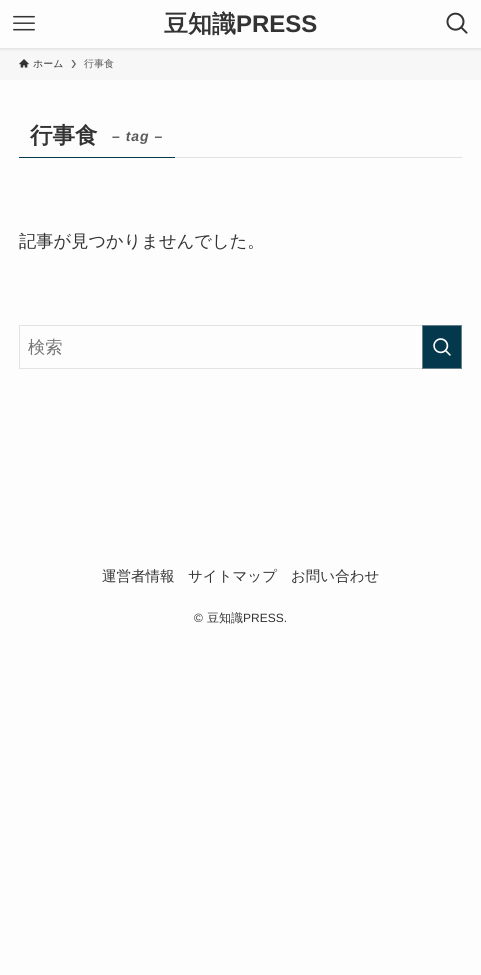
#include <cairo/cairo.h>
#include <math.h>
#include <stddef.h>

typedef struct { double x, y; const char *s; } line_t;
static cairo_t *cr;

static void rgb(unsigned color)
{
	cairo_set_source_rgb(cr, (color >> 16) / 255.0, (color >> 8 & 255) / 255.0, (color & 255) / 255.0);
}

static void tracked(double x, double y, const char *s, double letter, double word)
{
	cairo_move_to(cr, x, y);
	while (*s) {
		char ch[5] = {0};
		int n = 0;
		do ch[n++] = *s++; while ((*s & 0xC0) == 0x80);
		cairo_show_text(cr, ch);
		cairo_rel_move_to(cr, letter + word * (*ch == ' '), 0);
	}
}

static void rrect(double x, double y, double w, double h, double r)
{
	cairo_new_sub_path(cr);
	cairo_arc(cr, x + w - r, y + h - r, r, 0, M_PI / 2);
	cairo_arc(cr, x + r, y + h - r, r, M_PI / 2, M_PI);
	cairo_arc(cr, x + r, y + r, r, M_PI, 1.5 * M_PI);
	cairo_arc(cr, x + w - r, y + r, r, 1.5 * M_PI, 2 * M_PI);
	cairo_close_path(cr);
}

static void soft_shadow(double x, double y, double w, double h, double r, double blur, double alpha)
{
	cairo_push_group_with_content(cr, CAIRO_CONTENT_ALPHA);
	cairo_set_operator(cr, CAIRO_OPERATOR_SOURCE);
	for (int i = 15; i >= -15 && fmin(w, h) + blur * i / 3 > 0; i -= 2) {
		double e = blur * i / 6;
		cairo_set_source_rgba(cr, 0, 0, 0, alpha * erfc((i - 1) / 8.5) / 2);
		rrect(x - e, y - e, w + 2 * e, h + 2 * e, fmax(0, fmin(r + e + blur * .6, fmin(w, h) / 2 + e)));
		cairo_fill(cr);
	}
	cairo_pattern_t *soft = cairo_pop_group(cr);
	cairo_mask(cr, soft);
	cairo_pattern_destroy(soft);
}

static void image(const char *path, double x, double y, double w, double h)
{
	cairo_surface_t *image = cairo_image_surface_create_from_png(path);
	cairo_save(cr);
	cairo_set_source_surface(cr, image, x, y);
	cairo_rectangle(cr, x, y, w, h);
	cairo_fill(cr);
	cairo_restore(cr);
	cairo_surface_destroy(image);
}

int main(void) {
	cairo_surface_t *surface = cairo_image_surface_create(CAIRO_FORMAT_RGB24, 481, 975);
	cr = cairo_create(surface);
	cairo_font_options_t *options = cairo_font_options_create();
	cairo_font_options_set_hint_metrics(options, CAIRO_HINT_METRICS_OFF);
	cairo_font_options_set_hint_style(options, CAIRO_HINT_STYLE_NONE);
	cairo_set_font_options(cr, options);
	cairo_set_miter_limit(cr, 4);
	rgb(0xfdfdfd);
	cairo_paint(cr);
	rgb(0xf7f7f7);
	cairo_rectangle(cr, 0, 48, 481, 32);
	cairo_fill(cr);
	cairo_save(cr);
	cairo_rectangle(cr, 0, 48, 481, 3);
	cairo_clip(cr);
	rgb(0x000000);
	soft_shadow(0, 1, 481, 48, 0, 2, 0.12);
	cairo_restore(cr);
	image("img/1.png", 13, 15, 22, 16);
	image("img/2.png", 446, 12, 22, 22);
	image("img/3.png", 19, 59, 10, 9);
	rgb(0x5a5a5a);
	cairo_new_path(cr);
	cairo_move_to(cr, 73, 60);
	cairo_line_to(cr, 71.5, 60);
	cairo_line_to(cr, 74.5, 64);
	cairo_line_to(cr, 71.5, 68);
	cairo_line_to(cr, 73, 68);
	cairo_line_to(cr, 76, 64);
	cairo_close_path(cr);
	cairo_fill(cr);
	rgb(0xe2e2e2);
	cairo_rectangle(cr, 175, 157, 287, 1);
	cairo_fill(cr);
	rgb(0x04384c);
	cairo_rectangle(cr, 19, 157, 156, 1);
	cairo_fill(cr);
	cairo_rectangle(cr, 19.5, 325.5, 442, 43);
	rgb(0xe3e3e3);
	cairo_set_line_width(cr, 1);
	cairo_stroke(cr);
	rgb(0x04384c);
	cairo_rectangle(cr, 422.5, 325.5, 39, 43);
	cairo_fill_preserve(cr);
	rgb(0x66808a);
	cairo_stroke(cr);
	image("img/4.png", 433, 338, 18, 18);
	cairo_select_font_face(cr, "WenQuanYi Zen Hei", CAIRO_FONT_SLANT_NORMAL, CAIRO_FONT_WEIGHT_BOLD);
	cairo_set_font_size(cr, 24);
	rgb(0x333333);
	cairo_move_to(cr, 164, 32);
	cairo_show_text(cr, "豆知識");
	cairo_select_font_face(cr, "Liberation Sans", CAIRO_FONT_SLANT_NORMAL, CAIRO_FONT_WEIGHT_BOLD);
	cairo_move_to(cr, 236, 32);
	cairo_show_text(cr, "PRESS");
	cairo_select_font_face(cr, "WenQuanYi Zen Hei Medium", CAIRO_FONT_SLANT_NORMAL, CAIRO_FONT_WEIGHT_NORMAL);
	cairo_set_font_size(cr, 10);
	cairo_move_to(cr, 33, 67);
	cairo_show_text(cr, "ホーム");
	rgb(0x5a5a5a);
	cairo_move_to(cr, 84, 67);
	cairo_show_text(cr, "行事食");
	cairo_select_font_face(cr, "WenQuanYi Zen Hei", CAIRO_FONT_SLANT_NORMAL, CAIRO_FONT_WEIGHT_BOLD);
	cairo_set_font_size(cr, 22.5);
	rgb(0x333333);
	cairo_move_to(cr, 30, 143);
	cairo_show_text(cr, "行事食");
	cairo_select_font_face(cr, "Liberation Sans", CAIRO_FONT_SLANT_ITALIC, CAIRO_FONT_WEIGHT_BOLD);
	cairo_set_font_size(cr, 14);
	rgb(0x5a5a5a);
	tracked(112, 141, "– tag –", 1, 0);
	cairo_select_font_face(cr, "WenQuanYi Zen Hei Medium", CAIRO_FONT_SLANT_NORMAL, CAIRO_FONT_WEIGHT_NORMAL);
	cairo_set_font_size(cr, 17.25);
	rgb(0x333333);
	cairo_move_to(cr, 19, 247);
	cairo_show_text(cr, "記事が見つかりませんでした。");
	rgb(0x757575);
	cairo_move_to(cr, 28, 353);
	cairo_show_text(cr, "検索");
	cairo_set_font_size(cr, 14.5);
	rgb(0x333333);
	{
		static const line_t items[] = {
			{102, 581, "運営者情報"},
			{188, 581, "サイトマップ"},
			{291, 581, "お問い合わせ"},
		};
		for (size_t i = 0; i < sizeof items / sizeof *items; i++) {
			cairo_move_to(cr, items[i].x, items[i].y);
			cairo_show_text(cr, items[i].s);
		}
	}
	cairo_select_font_face(cr, "Liberation Sans", CAIRO_FONT_SLANT_NORMAL, CAIRO_FONT_WEIGHT_NORMAL);
	cairo_set_font_size(cr, 12);
	cairo_move_to(cr, 194, 622);
	cairo_show_text(cr, "©");
	cairo_select_font_face(cr, "WenQuanYi Zen Hei Medium", CAIRO_FONT_SLANT_NORMAL, CAIRO_FONT_WEIGHT_NORMAL);
	cairo_move_to(cr, 207, 622);
	cairo_show_text(cr, "豆知識");
	cairo_select_font_face(cr, "Liberation Sans", CAIRO_FONT_SLANT_NORMAL, CAIRO_FONT_WEIGHT_NORMAL);
	cairo_move_to(cr, 243, 622);
	cairo_show_text(cr, "PRESS.");
	cairo_surface_write_to_png(surface, "page.png");
	cairo_font_options_destroy(options);
	cairo_destroy(cr);
	cairo_surface_destroy(surface);
	return 0;
}
